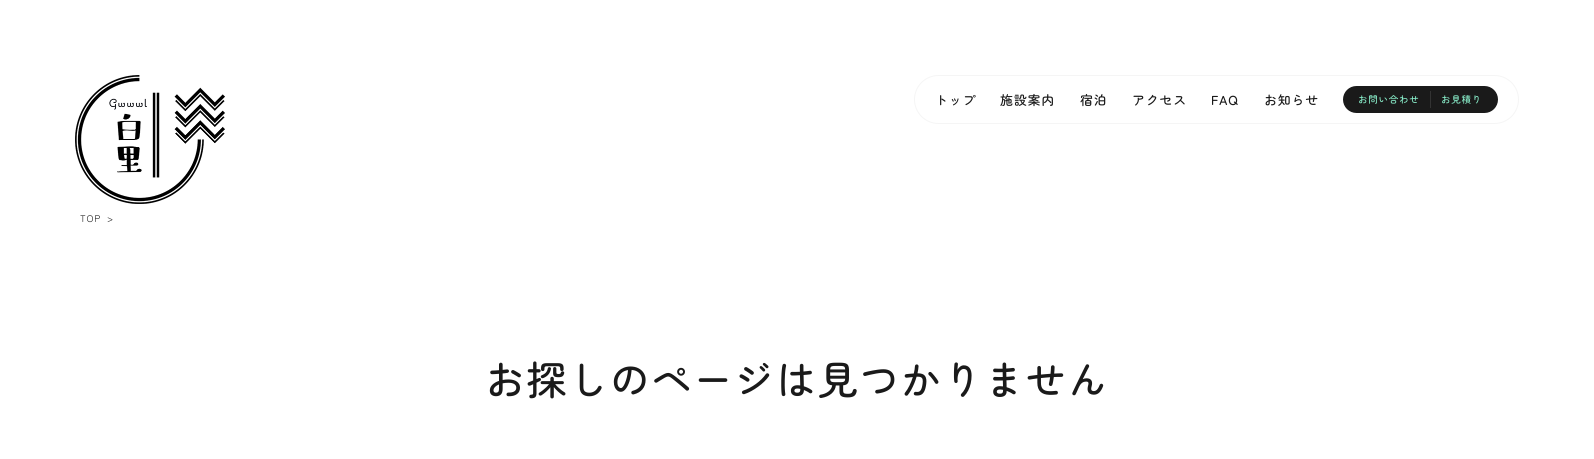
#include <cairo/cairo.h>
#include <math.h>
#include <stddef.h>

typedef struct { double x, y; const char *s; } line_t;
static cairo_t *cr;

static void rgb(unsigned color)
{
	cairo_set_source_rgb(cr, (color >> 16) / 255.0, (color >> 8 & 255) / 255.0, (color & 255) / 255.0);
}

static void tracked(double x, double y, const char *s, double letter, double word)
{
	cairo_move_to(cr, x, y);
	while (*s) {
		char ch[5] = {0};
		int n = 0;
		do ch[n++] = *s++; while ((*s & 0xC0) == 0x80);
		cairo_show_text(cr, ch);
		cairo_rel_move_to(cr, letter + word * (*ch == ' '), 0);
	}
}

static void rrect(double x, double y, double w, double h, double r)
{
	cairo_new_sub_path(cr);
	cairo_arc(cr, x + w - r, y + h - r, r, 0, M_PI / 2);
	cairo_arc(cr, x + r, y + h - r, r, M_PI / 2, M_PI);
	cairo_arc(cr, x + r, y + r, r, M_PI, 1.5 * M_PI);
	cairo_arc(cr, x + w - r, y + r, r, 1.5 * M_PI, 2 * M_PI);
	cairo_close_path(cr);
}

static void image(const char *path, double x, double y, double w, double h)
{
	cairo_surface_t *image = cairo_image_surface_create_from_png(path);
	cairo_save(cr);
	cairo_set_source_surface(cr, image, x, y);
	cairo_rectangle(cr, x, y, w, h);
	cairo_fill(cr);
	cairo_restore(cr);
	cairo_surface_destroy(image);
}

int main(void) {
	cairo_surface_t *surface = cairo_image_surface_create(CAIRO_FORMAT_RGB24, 1594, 459);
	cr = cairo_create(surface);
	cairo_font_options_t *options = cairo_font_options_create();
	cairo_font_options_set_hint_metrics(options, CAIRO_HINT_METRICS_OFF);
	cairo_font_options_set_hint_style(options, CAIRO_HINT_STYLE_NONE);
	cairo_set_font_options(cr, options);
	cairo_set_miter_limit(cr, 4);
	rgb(0xffffff);
	cairo_paint(cr);
	image("img/1.png", 75, 75, 150, 129);
	rrect(914.5, 75.5, 604, 48, 24);
	rgb(0xf5f5f5);
	cairo_set_line_width(cr, 1);
	cairo_stroke(cr);
	rgb(0x1a1a1a);
	rrect(1343, 86, 155, 27, 13.5);
	cairo_fill(cr);
	rgb(0x333333);
	cairo_rectangle(cr, 1430, 91, 1, 17);
	cairo_fill(cr);
	cairo_select_font_face(cr, "Zen Maru Gothic Medium", CAIRO_FONT_SLANT_NORMAL, CAIRO_FONT_WEIGHT_NORMAL);
	cairo_set_font_size(cr, 13);
	rgb(0x1a1a1a);
	{
		static const line_t items[] = {
			{935, 105, "トップ"},
			{1000, 105, "施設案内"},
			{1080, 105, "宿泊"},
			{1132, 105, "アクセス"},
			{1211, 105, "FAQ"},
			{1264, 105, "お知らせ"},
		};
		for (size_t i = 0; i < sizeof items / sizeof *items; i++) {
			tracked(items[i].x, items[i].y, items[i].s, 0.75, 0);
		}
	}
	cairo_set_font_size(cr, 9.5);
	rgb(0x88edc9);
	tracked(1358, 103, "お問い合わせ", 0.75, 0);
	tracked(1441, 103, "お見積り", 0.75, 0);
	cairo_select_font_face(cr, "Zen Maru Gothic", CAIRO_FONT_SLANT_NORMAL, CAIRO_FONT_WEIGHT_NORMAL);
	rgb(0x1a1a1a);
	tracked(80, 222, "TOP", 0.75, 0);
	tracked(107, 222, ">", 0.75, 0);
	cairo_select_font_face(cr, "Zen Maru Gothic Medium", CAIRO_FONT_SLANT_NORMAL, CAIRO_FONT_WEIGHT_NORMAL);
	cairo_set_font_size(cr, 40);
	tracked(485, 395, "お探しのページは見つかりません", 1.6, 0);
	cairo_surface_write_to_png(surface, "page.png");
	cairo_font_options_destroy(options);
	cairo_destroy(cr);
	cairo_surface_destroy(surface);
	return 0;
}
